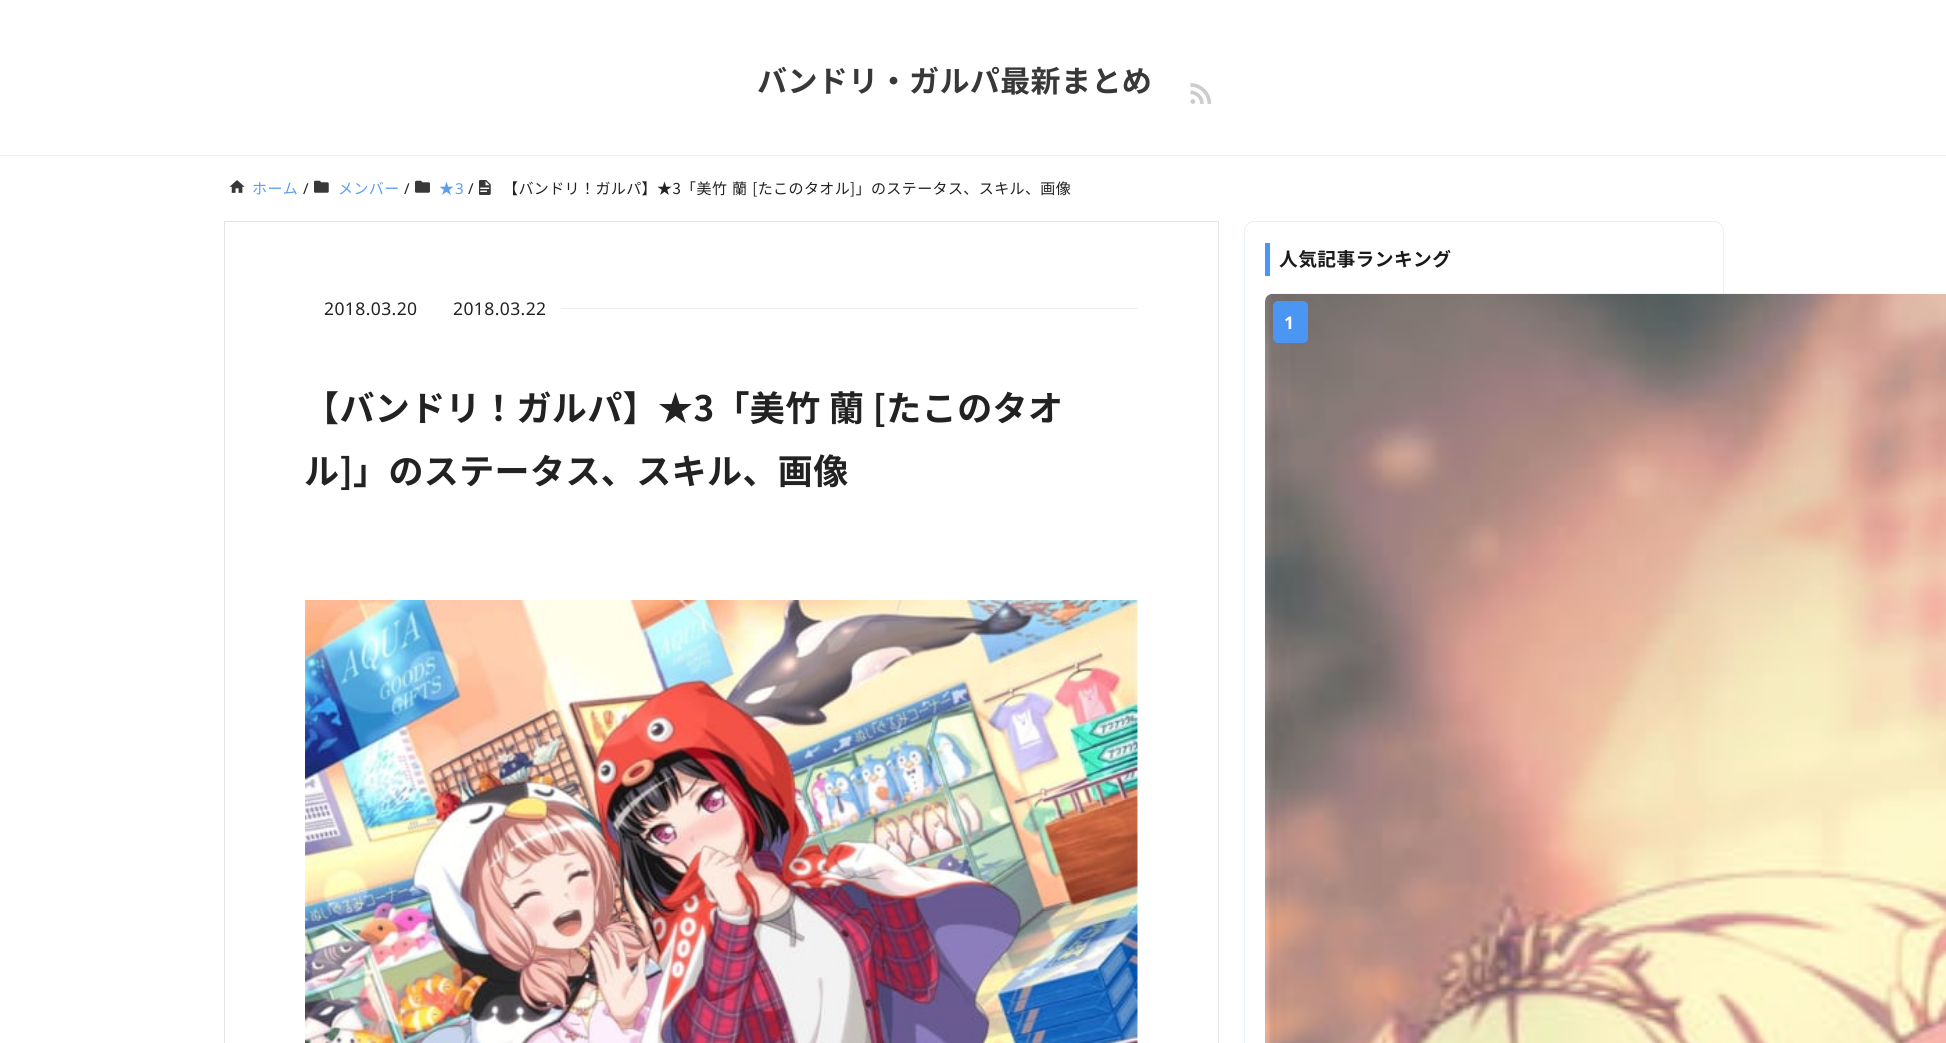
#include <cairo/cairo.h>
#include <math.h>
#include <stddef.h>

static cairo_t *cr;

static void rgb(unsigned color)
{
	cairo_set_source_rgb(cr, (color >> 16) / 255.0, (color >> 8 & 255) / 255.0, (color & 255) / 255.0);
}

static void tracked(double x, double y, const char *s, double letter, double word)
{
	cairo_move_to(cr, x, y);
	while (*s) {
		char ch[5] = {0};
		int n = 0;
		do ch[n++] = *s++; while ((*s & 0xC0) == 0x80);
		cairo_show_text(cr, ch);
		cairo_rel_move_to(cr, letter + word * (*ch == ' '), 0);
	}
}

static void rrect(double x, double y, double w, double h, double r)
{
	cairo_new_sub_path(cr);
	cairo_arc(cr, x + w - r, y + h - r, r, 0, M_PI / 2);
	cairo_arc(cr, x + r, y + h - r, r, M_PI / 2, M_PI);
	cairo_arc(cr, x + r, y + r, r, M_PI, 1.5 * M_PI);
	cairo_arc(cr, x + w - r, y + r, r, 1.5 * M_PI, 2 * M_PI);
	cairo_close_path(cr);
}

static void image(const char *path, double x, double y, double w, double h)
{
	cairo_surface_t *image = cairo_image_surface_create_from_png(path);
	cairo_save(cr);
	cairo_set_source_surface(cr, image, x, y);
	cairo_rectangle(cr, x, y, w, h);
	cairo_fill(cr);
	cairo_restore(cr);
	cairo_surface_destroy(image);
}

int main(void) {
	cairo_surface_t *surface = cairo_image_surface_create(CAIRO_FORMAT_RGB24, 1946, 1043);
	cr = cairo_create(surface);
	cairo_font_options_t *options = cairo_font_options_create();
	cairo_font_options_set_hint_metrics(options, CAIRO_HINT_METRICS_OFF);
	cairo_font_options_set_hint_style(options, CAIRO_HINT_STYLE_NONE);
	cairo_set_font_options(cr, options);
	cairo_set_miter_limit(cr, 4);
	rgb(0xffffff);
	cairo_paint(cr);
	rgb(0xefefef);
	cairo_rectangle(cr, 0, 155, 1946, 1);
	cairo_fill(cr);
	image("img/1.png", 1190, 83, 22, 21);
	image("img/2.png", 229, 180, 16, 13);
	image("img/3.png", 314, 180, 15, 13);
	image("img/4.png", 415, 180, 15, 13);
	image("img/5.png", 479, 180, 12, 15);
	rrect(1244.5, 221.5, 479, 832, 9.5);
	rgb(0xe7eef8);
	cairo_set_line_width(cr, 1);
	cairo_stroke(cr);
	rgb(0x4b96f3);
	cairo_rectangle(cr, 1265, 243, 5, 33);
	cairo_fill(cr);
	image("img/6.png", 1265, 293, 681, 750);
	rrect(1273, 301, 35, 42, 5);
	cairo_fill(cr);
	cairo_rectangle(cr, 224.5, 221.5, 994, 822);
	rgb(0xe5e5e5);
	cairo_stroke(cr);
	rgb(0xededed);
	cairo_rectangle(cr, 561, 308, 577, 1);
	cairo_fill(cr);
	image("img/7.png", 305, 600, 833, 443);
	cairo_select_font_face(cr, "Noto Sans JP", CAIRO_FONT_SLANT_NORMAL, CAIRO_FONT_WEIGHT_BOLD);
	cairo_set_font_size(cr, 30);
	rgb(0x383838);
	tracked(757, 92, "バンドリ・ガルパ最新まとめ", 0.4, 0);
	cairo_select_font_face(cr, "Noto Sans JP", CAIRO_FONT_SLANT_NORMAL, CAIRO_FONT_WEIGHT_NORMAL);
	cairo_set_font_size(cr, 15);
	rgb(0x5c9df2);
	tracked(252, 194, "ホーム", 0.4, 0);
	cairo_select_font_face(cr, "Noto Sans", CAIRO_FONT_SLANT_NORMAL, CAIRO_FONT_WEIGHT_NORMAL);
	rgb(0x222222);
	tracked(303, 194, "/", 0.4, 0);
	cairo_select_font_face(cr, "Noto Sans JP", CAIRO_FONT_SLANT_NORMAL, CAIRO_FONT_WEIGHT_NORMAL);
	rgb(0x5c9df2);
	tracked(338, 194, "メンバー", 0.4, 0);
	cairo_select_font_face(cr, "Noto Sans", CAIRO_FONT_SLANT_NORMAL, CAIRO_FONT_WEIGHT_NORMAL);
	rgb(0x222222);
	tracked(404, 194, "/", 0.4, 0);
	cairo_select_font_face(cr, "Noto Sans JP", CAIRO_FONT_SLANT_NORMAL, CAIRO_FONT_WEIGHT_NORMAL);
	rgb(0x5c9df2);
	tracked(439, 194, "★", 0.4, 0);
	cairo_select_font_face(cr, "Noto Sans", CAIRO_FONT_SLANT_NORMAL, CAIRO_FONT_WEIGHT_NORMAL);
	tracked(455, 194, "3", 0.4, 0);
	rgb(0x222222);
	tracked(468, 194, "/", 0.4, 0);
	cairo_select_font_face(cr, "Noto Sans JP", CAIRO_FONT_SLANT_NORMAL, CAIRO_FONT_WEIGHT_NORMAL);
	tracked(503, 194, "【バンドリ！ガルパ】★3「美竹 蘭 [たこのタオル]」のステータス、スキル、画像", 0.4, 1);
	cairo_select_font_face(cr, "Noto Sans JP", CAIRO_FONT_SLANT_NORMAL, CAIRO_FONT_WEIGHT_BOLD);
	cairo_set_font_size(cr, 18.75);
	rgb(0x1a1a1a);
	tracked(1279, 266, "人気記事ランキング", 0.4, 0);
	cairo_select_font_face(cr, "Noto Sans", CAIRO_FONT_SLANT_NORMAL, CAIRO_FONT_WEIGHT_BOLD);
	cairo_set_font_size(cr, 17.5);
	rgb(0xffffff);
	tracked(1284, 329, "1", 0.4, 0);
	cairo_select_font_face(cr, "Noto Sans", CAIRO_FONT_SLANT_NORMAL, CAIRO_FONT_WEIGHT_NORMAL);
	rgb(0x222222);
	tracked(324, 315, "2018.03.20", 0.4, 0);
	tracked(453, 315, "2018.03.22", 0.4, 0);
	cairo_select_font_face(cr, "Noto Sans JP", CAIRO_FONT_SLANT_NORMAL, CAIRO_FONT_WEIGHT_BOLD);
	cairo_set_font_size(cr, 35);
	tracked(304, 421, "【バンドリ！ガルパ】★3「美竹 蘭 [たこのタオ", 0.4, 0);
	tracked(304, 484, "ル]」のステータス、スキル、画像", 0.4, 0);
	cairo_surface_write_to_png(surface, "page.png");
	cairo_font_options_destroy(options);
	cairo_destroy(cr);
	cairo_surface_destroy(surface);
	return 0;
}
